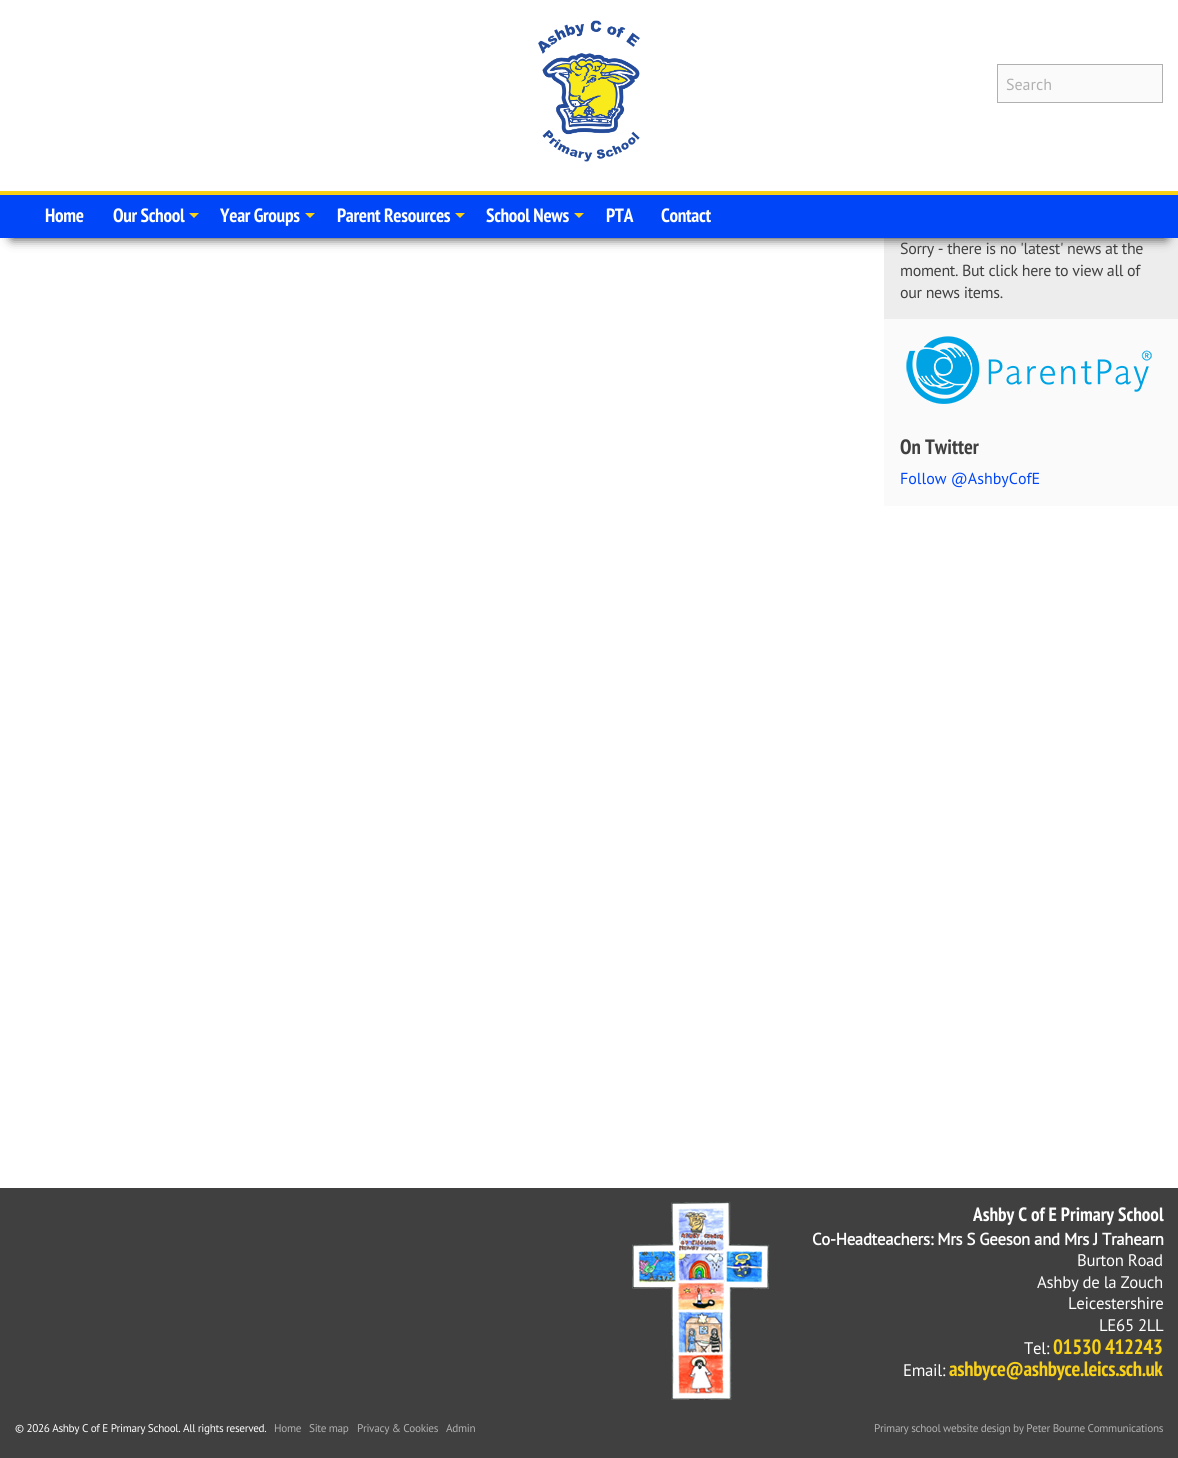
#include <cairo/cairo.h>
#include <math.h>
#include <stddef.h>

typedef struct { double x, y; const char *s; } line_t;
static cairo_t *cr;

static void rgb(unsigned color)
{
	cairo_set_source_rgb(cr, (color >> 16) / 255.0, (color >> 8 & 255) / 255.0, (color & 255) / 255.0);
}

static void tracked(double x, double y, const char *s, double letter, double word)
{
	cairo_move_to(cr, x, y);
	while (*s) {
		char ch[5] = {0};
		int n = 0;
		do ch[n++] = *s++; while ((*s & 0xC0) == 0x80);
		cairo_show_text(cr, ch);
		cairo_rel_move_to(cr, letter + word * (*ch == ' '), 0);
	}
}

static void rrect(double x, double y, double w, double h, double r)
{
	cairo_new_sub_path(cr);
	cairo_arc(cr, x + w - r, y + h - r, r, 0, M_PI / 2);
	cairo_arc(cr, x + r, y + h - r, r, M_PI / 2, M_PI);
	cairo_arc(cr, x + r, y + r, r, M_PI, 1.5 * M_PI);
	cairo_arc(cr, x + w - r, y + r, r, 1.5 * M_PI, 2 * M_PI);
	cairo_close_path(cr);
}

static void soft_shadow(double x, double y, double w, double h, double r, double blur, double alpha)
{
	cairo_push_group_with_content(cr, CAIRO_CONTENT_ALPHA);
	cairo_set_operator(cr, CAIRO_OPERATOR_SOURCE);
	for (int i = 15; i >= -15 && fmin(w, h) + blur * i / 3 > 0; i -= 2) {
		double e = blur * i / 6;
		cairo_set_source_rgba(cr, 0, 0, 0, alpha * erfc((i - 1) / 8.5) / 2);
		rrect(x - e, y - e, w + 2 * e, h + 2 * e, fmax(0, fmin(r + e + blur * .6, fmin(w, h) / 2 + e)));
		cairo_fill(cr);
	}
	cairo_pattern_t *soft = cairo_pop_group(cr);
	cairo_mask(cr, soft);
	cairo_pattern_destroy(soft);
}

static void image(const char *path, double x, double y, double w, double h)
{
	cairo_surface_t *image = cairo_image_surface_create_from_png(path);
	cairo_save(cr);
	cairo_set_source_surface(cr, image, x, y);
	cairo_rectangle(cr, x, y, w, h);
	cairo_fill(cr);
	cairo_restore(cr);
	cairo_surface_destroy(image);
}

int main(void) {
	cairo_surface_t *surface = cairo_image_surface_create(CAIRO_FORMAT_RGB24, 1178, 1458);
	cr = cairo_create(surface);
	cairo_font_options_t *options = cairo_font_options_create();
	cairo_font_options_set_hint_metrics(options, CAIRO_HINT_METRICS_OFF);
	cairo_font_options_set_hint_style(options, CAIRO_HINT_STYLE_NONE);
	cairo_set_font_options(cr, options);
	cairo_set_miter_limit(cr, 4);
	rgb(0xffffff);
	cairo_paint(cr);
	image("img/1.png", 538, 20, 102, 142);
	rgb(0xfafafa);
	cairo_rectangle(cr, 997.5, 64.5, 165, 38);
	cairo_fill_preserve(cr);
	rgb(0xb0b0b0);
	cairo_set_line_width(cr, 1);
	cairo_stroke(cr);
	rgb(0xededed);
	cairo_rectangle(cr, 884, 238, 294, 81);
	cairo_fill(cr);
	rgb(0x000000);
	soft_shadow(12, 215, 1154, 23, 0, 6, 0.85);
	rgb(0x0046f8);
	cairo_rectangle(cr, 0, 195, 1178, 43);
	cairo_fill(cr);
	rgb(0xf8d118);
	cairo_rectangle(cr, 0, 191, 1178, 4);
	cairo_fill(cr);
	cairo_new_path(cr);
	cairo_move_to(cr, 189, 213);
	cairo_line_to(cr, 199, 213);
	cairo_line_to(cr, 194, 218);
	cairo_close_path(cr);
	cairo_fill(cr);
	cairo_new_path(cr);
	cairo_move_to(cr, 305, 213);
	cairo_line_to(cr, 315, 213);
	cairo_line_to(cr, 310, 218);
	cairo_close_path(cr);
	cairo_fill(cr);
	cairo_new_path(cr);
	cairo_move_to(cr, 455, 213);
	cairo_line_to(cr, 465, 213);
	cairo_line_to(cr, 460, 218);
	cairo_close_path(cr);
	cairo_fill(cr);
	cairo_new_path(cr);
	cairo_move_to(cr, 574, 213);
	cairo_line_to(cr, 584, 213);
	cairo_line_to(cr, 579, 218);
	cairo_close_path(cr);
	cairo_fill(cr);
	rgb(0xfafafa);
	cairo_rectangle(cr, 884, 319, 294, 187);
	cairo_fill(cr);
	image("img/2.png", 906, 336, 246, 68);
	rgb(0x404040);
	cairo_rectangle(cr, 0, 1188, 1178, 270);
	cairo_fill(cr);
	image("img/3.png", 632, 1201, 138, 199);
	cairo_select_font_face(cr, "PT Sans", CAIRO_FONT_SLANT_NORMAL, CAIRO_FONT_WEIGHT_NORMAL);
	cairo_set_font_size(cr, 16);
	rgb(0xb0b0b0);
	cairo_move_to(cr, 1006, 90);
	cairo_show_text(cr, "Search");
	cairo_select_font_face(cr, "PT Sans Narrow", CAIRO_FONT_SLANT_NORMAL, CAIRO_FONT_WEIGHT_BOLD);
	cairo_set_font_size(cr, 19.25);
	rgb(0xfefefe);
	{
		static const line_t items[] = {
			{45, 222, "Home"},
			{113, 222, "Our School"},
			{220, 222, "Year Groups"},
			{337, 222, "Parent Resources"},
			{486, 222, "School News"},
			{606, 222, "PTA"},
			{661, 222, "Contact"},
		};
		for (size_t i = 0; i < sizeof items / sizeof *items; i++) {
			tracked(items[i].x, items[i].y, items[i].s, -0.32, 0);
		}
	}
	cairo_select_font_face(cr, "PT Sans", CAIRO_FONT_SLANT_NORMAL, CAIRO_FONT_WEIGHT_NORMAL);
	cairo_set_font_size(cr, 16);
	rgb(0x404040);
	{
		static const line_t items[] = {
			{900, 254, "Sorry - there is no 'latest' news at the"},
			{900, 276, "moment. But click here to view all of"},
			{900, 298, "our news items."},
		};
		for (size_t i = 0; i < sizeof items / sizeof *items; i++) {
			tracked(items[i].x, items[i].y, items[i].s, -0.32, 0);
		}
	}
	cairo_select_font_face(cr, "PT Sans Narrow", CAIRO_FONT_SLANT_NORMAL, CAIRO_FONT_WEIGHT_BOLD);
	cairo_set_font_size(cr, 20.75);
	cairo_move_to(cr, 900, 454);
	cairo_show_text(cr, "On Twitter");
	cairo_select_font_face(cr, "PT Sans", CAIRO_FONT_SLANT_NORMAL, CAIRO_FONT_WEIGHT_NORMAL);
	cairo_set_font_size(cr, 16);
	rgb(0x0046f8);
	cairo_move_to(cr, 900, 484);
	cairo_show_text(cr, "Follow @AshbyCofE");
	cairo_select_font_face(cr, "PT Sans Narrow", CAIRO_FONT_SLANT_NORMAL, CAIRO_FONT_WEIGHT_BOLD);
	cairo_set_font_size(cr, 19.25);
	rgb(0xfefefe);
	cairo_move_to(cr, 973, 1221);
	cairo_show_text(cr, "Ashby C of E Primary School");
	cairo_select_font_face(cr, "PT Sans", CAIRO_FONT_SLANT_NORMAL, CAIRO_FONT_WEIGHT_BOLD);
	cairo_set_font_size(cr, 16.8);
	tracked(812, 1245, "Co-Headteachers: Mrs S Geeson and Mrs J Trahearn", -0.32, 0);
	cairo_select_font_face(cr, "PT Sans", CAIRO_FONT_SLANT_NORMAL, CAIRO_FONT_WEIGHT_NORMAL);
	{
		static const line_t items[] = {
			{1077, 1266, "Burton Road"},
			{1037, 1288, "Ashby de la Zouch"},
			{1068, 1309, "Leicestershire"},
			{1099, 1331, "LE65 2LL"},
			{1024, 1354, "Tel:"},
		};
		for (size_t i = 0; i < sizeof items / sizeof *items; i++) {
			tracked(items[i].x, items[i].y, items[i].s, -0.32, 0);
		}
	}
	cairo_select_font_face(cr, "PT Sans Narrow", CAIRO_FONT_SLANT_NORMAL, CAIRO_FONT_WEIGHT_BOLD);
	cairo_set_font_size(cr, 20.75);
	rgb(0xf8d118);
	tracked(1053, 1354, "01530 412243", -0.32, 0);
	cairo_select_font_face(cr, "PT Sans", CAIRO_FONT_SLANT_NORMAL, CAIRO_FONT_WEIGHT_NORMAL);
	cairo_set_font_size(cr, 16.8);
	rgb(0xfefefe);
	tracked(903, 1376, "Email:", -0.32, 0);
	cairo_select_font_face(cr, "PT Sans Narrow", CAIRO_FONT_SLANT_NORMAL, CAIRO_FONT_WEIGHT_BOLD);
	cairo_set_font_size(cr, 20.75);
	rgb(0xf8d118);
	tracked(949, 1376, "ashbyce@ashbyce.leics.sch.uk", -0.32, 0);
	cairo_select_font_face(cr, "PT Sans", CAIRO_FONT_SLANT_NORMAL, CAIRO_FONT_WEIGHT_NORMAL);
	cairo_set_font_size(cr, 11.2);
	rgb(0xfefefe);
	tracked(15, 1432, "© 2026 Ashby C of E Primary School. All rights reserved.", -0.32, 0);
	rgb(0xb0b0b0);
	{
		static const line_t items[] = {
			{274, 1432, "Home"},
			{309, 1432, "Site map"},
			{357, 1432, "Privacy & Cookies"},
			{446, 1432, "Admin"},
			{874, 1432, "Primary school website design by Peter Bourne Communications"},
		};
		for (size_t i = 0; i < sizeof items / sizeof *items; i++) {
			tracked(items[i].x, items[i].y, items[i].s, -0.32, 0);
		}
	}
	cairo_surface_write_to_png(surface, "page.png");
	cairo_font_options_destroy(options);
	cairo_destroy(cr);
	cairo_surface_destroy(surface);
	return 0;
}
